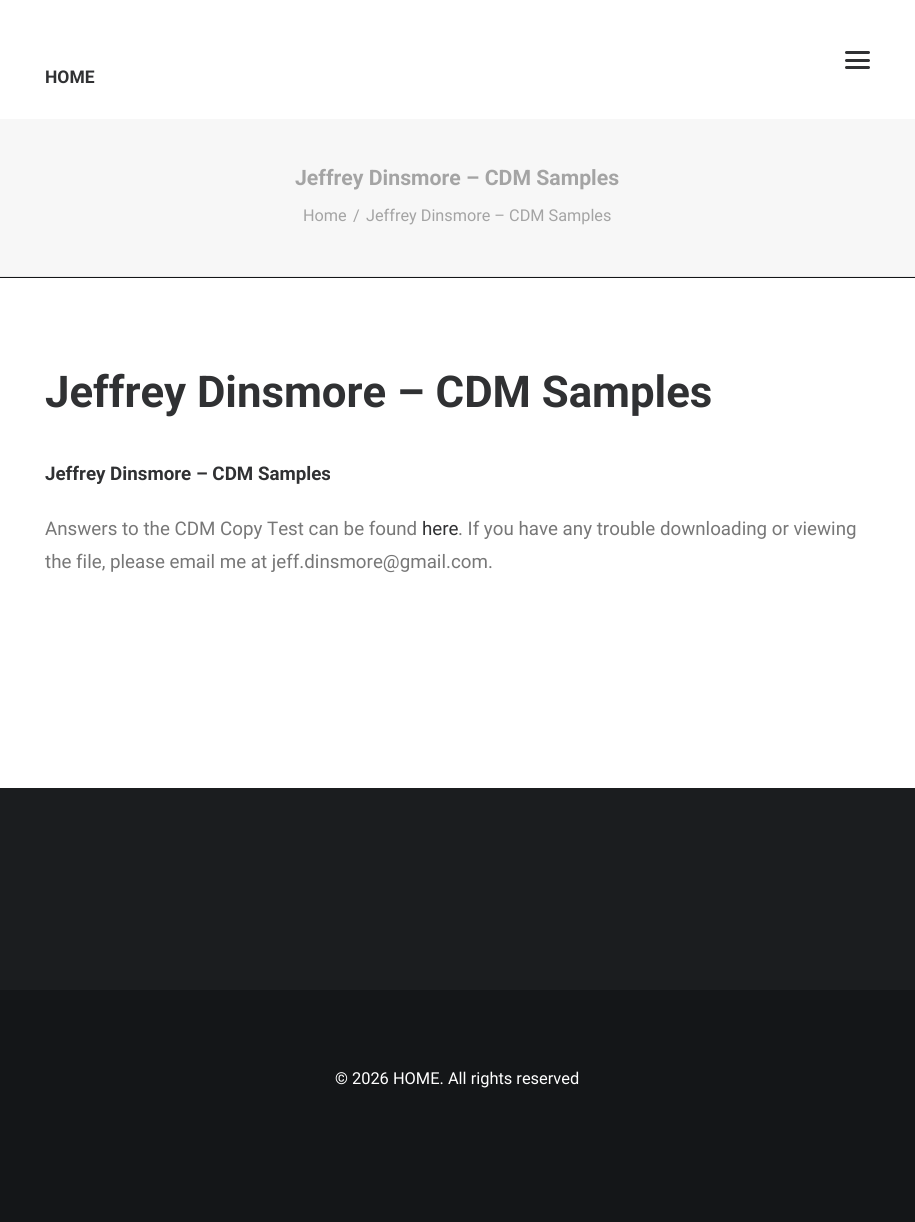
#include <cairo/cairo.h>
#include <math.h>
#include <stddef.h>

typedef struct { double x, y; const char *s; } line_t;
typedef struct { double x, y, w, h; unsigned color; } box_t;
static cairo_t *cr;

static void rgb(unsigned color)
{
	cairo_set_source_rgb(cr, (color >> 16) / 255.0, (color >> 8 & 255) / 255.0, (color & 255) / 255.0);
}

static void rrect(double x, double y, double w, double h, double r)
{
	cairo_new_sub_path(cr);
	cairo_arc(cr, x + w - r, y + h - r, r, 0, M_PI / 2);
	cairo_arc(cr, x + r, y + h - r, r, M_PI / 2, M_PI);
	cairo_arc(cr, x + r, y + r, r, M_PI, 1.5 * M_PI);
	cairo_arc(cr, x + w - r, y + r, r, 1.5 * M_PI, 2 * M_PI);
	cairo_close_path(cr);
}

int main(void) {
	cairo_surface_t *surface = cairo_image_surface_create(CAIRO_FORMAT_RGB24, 915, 1222);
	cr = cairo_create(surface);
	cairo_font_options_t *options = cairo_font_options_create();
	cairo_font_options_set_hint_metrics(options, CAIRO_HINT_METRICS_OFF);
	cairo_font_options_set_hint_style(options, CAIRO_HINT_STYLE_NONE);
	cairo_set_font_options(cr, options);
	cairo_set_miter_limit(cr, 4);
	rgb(0x141618);
	cairo_paint(cr);
	rgb(0xffffff);
	cairo_rectangle(cr, 0, 0, 915, 119);
	cairo_fill(cr);
	rgb(0x303133);
	rrect(845, 59, 25, 3, 1.5);
	cairo_fill(cr);
	rrect(845, 51, 25, 3, 1.5);
	cairo_fill(cr);
	rrect(845, 66, 25, 3, 1.5);
	cairo_fill(cr);
	{
		static const box_t items[] = {
			{0, 119, 915, 157, 0xf7f7f7},
			{0, 276, 915, 1, 0xeaeaea},
			{0, 278, 915, 510, 0xffffff},
			{0, 788, 915, 202, 0x1b1d1f},
		};
		for (size_t i = 0; i < sizeof items / sizeof *items; i++) {
			rgb(items[i].color);
			cairo_rectangle(cr, items[i].x, items[i].y, items[i].w, items[i].h);
			cairo_fill(cr);
		}
	}
	cairo_select_font_face(cr, "Roboto", CAIRO_FONT_SLANT_NORMAL, CAIRO_FONT_WEIGHT_BOLD);
	cairo_set_font_size(cr, 17.5);
	rgb(0x303133);
	cairo_move_to(cr, 45, 83);
	cairo_show_text(cr, "HOME");
	cairo_set_font_size(cr, 21.25);
	rgb(0xa4a4a4);
	cairo_move_to(cr, 295, 185);
	cairo_show_text(cr, "Jeffrey Dinsmore – CDM Samples");
	cairo_select_font_face(cr, "Roboto", CAIRO_FONT_SLANT_NORMAL, CAIRO_FONT_WEIGHT_NORMAL);
	cairo_set_font_size(cr, 16.25);
	{
		static const line_t items[] = {
			{303, 221, "Home"},
			{353, 221, "/"},
			{366, 221, "Jeffrey Dinsmore – CDM Samples"},
		};
		for (size_t i = 0; i < sizeof items / sizeof *items; i++) {
			cairo_move_to(cr, items[i].x, items[i].y);
			cairo_show_text(cr, items[i].s);
		}
	}
	cairo_select_font_face(cr, "Roboto", CAIRO_FONT_SLANT_NORMAL, CAIRO_FONT_WEIGHT_BOLD);
	cairo_set_font_size(cr, 43.75);
	rgb(0x303133);
	cairo_move_to(cr, 45, 407);
	cairo_show_text(cr, "Jeffrey Dinsmore – CDM Samples");
	cairo_set_font_size(cr, 18.75);
	cairo_move_to(cr, 45, 480);
	cairo_show_text(cr, "Jeffrey Dinsmore – CDM Samples");
	cairo_select_font_face(cr, "Roboto", CAIRO_FONT_SLANT_NORMAL, CAIRO_FONT_WEIGHT_NORMAL);
	rgb(0x777777);
	cairo_move_to(cr, 45, 535);
	cairo_show_text(cr, "Answers to the CDM Copy Test can be found");
	rgb(0x303133);
	cairo_move_to(cr, 422, 535);
	cairo_show_text(cr, "here");
	rgb(0x777777);
	cairo_move_to(cr, 458, 535);
	cairo_show_text(cr, ". If you have any trouble downloading or viewing");
	cairo_move_to(cr, 45, 568);
	cairo_show_text(cr, "the file, please email me at jeff.dinsmore@gmail.com.");
	cairo_set_font_size(cr, 16.4);
	rgb(0xffffff);
	cairo_move_to(cr, 335, 1084);
	cairo_show_text(cr, "© 2026 HOME. All rights reserved");
	cairo_surface_write_to_png(surface, "page.png");
	cairo_font_options_destroy(options);
	cairo_destroy(cr);
	cairo_surface_destroy(surface);
	return 0;
}
